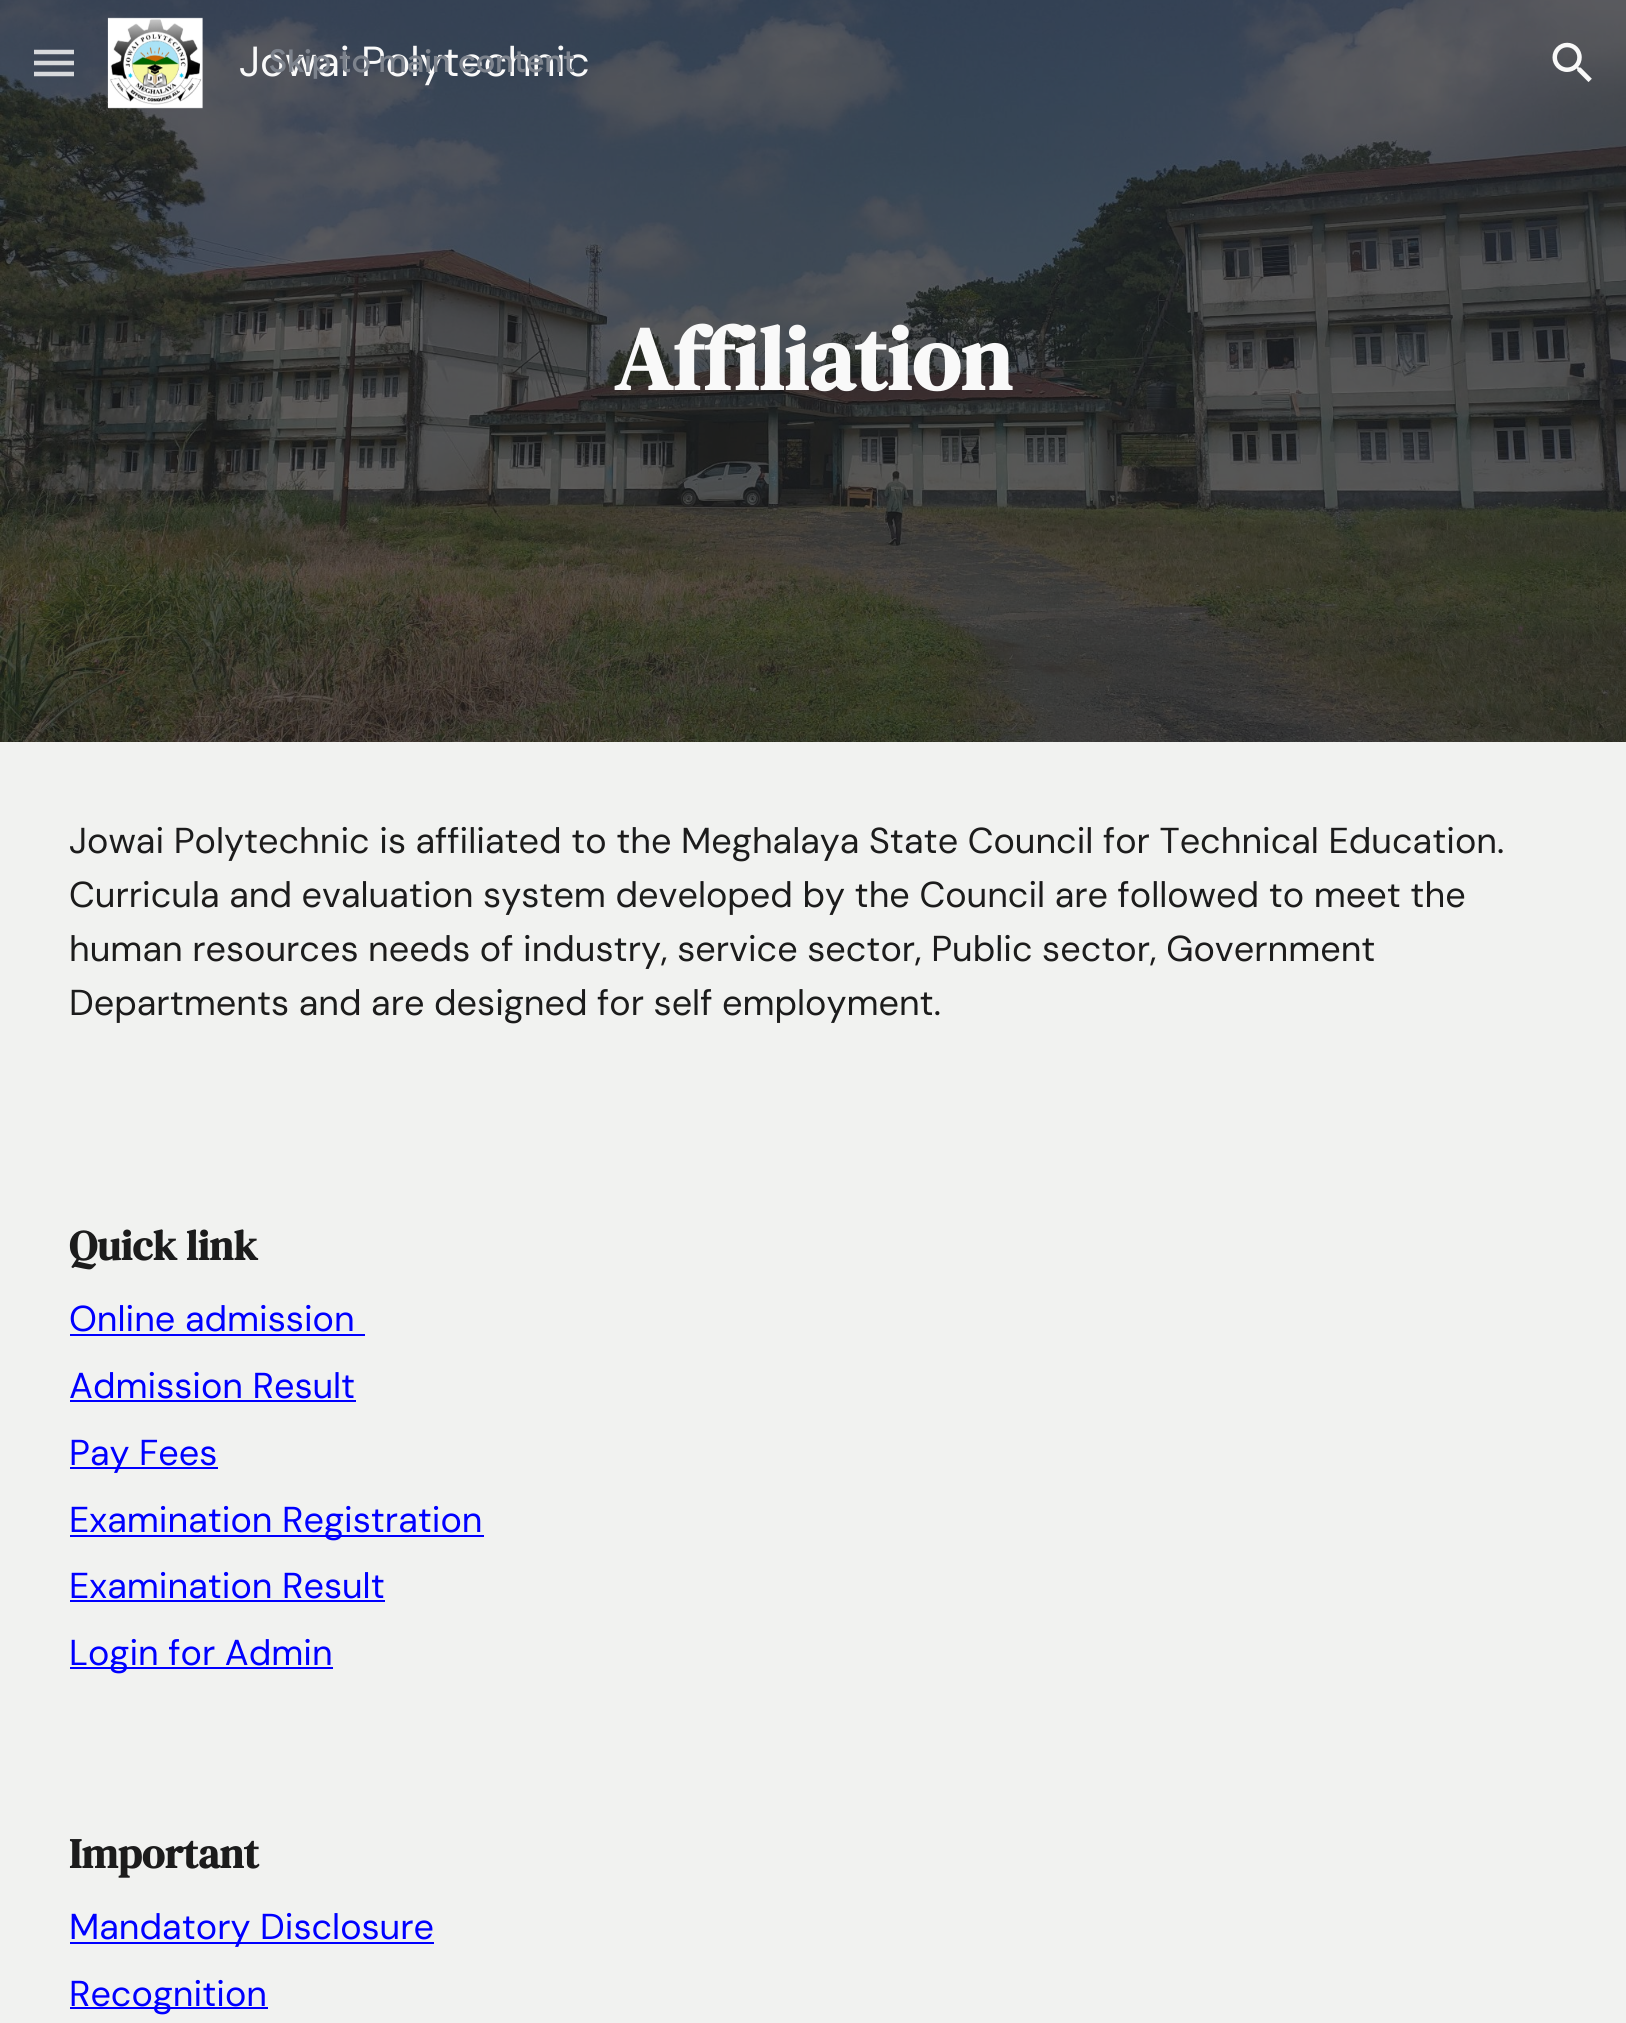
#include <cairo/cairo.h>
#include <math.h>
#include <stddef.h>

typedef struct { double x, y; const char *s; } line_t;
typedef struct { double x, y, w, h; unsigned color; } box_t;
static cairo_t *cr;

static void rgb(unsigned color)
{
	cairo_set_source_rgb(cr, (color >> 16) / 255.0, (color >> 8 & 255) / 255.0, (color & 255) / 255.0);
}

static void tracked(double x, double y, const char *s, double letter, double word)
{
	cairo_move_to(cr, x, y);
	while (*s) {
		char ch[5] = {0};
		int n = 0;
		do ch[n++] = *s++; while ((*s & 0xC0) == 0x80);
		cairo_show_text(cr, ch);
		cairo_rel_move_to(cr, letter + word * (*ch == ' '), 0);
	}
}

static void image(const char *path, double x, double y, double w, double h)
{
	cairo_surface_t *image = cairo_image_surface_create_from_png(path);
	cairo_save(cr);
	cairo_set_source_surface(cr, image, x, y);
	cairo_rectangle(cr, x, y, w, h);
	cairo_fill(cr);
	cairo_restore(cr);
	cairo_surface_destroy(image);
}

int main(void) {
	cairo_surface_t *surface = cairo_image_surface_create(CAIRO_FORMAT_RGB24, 1626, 2023);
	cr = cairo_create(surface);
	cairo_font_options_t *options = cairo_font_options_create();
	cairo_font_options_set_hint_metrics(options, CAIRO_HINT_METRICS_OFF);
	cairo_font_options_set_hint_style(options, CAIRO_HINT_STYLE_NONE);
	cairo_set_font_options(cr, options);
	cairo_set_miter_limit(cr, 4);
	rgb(0xf1f2f0);
	cairo_paint(cr);
	image("img/3.png", 0, 0, 1626, 742);
	cairo_new_path(cr);
	cairo_move_to(cr, 34, 52);
	cairo_line_to(cr, 74, 52);
	cairo_move_to(cr, 34, 63);
	cairo_line_to(cr, 74, 63);
	cairo_move_to(cr, 34, 74);
	cairo_line_to(cr, 74, 74);
	rgb(0xd7d9dc);
	cairo_set_line_width(cr, 4.5);
	cairo_stroke(cr);
	image("img/1.png", 107, 17, 96, 92);
	image("img/2.png", 1552, 42, 40, 40);
	{
		static const box_t items[] = {
			{70, 1334, 295, 2, 0x0000ff},
			{70, 1400, 286, 2, 0x0000ff},
			{70, 1467, 148, 2, 0x0000ff},
			{70, 1535, 414, 2, 0x0000ff},
			{70, 1600, 315, 2, 0x0000ff},
			{70, 1667, 263, 2, 0x0000ff},
			{70, 1942, 364, 2, 0x0000ff},
			{70, 2007, 198, 2, 0x0000ff},
		};
		for (size_t i = 0; i < sizeof items / sizeof *items; i++) {
			rgb(items[i].color);
			cairo_rectangle(cr, items[i].x, items[i].y, items[i].w, items[i].h);
			cairo_fill(cr);
		}
	}
	cairo_select_font_face(cr, "DM Sans", CAIRO_FONT_SLANT_NORMAL, CAIRO_FONT_WEIGHT_NORMAL);
	cairo_set_font_size(cr, 42);
	rgb(0xf9f9f9);
	cairo_move_to(cr, 239, 76);
	cairo_show_text(cr, "Jowai Polytechnic");
	cairo_select_font_face(cr, "DM Serif Text", CAIRO_FONT_SLANT_NORMAL, CAIRO_FONT_WEIGHT_BOLD);
	cairo_set_font_size(cr, 90);
	cairo_move_to(cr, 614, 390);
	cairo_show_text(cr, "Affiliation");
	cairo_select_font_face(cr, "DM Sans", CAIRO_FONT_SLANT_NORMAL, CAIRO_FONT_WEIGHT_NORMAL);
	cairo_set_font_size(cr, 36);
	rgb(0x1c1c1c);
	{
		static const line_t items[] = {
			{69, 853, "Jowai Polytechnic is affiliated to the Meghalaya State Council for Technical Education."},
			{69, 907, "Curricula and evaluation system developed by the Council are followed to meet the"},
			{69, 961, "human resources needs of industry, service sector, Public sector, Government"},
			{69, 1015, "Departments and are designed for self employment."},
		};
		for (size_t i = 0; i < sizeof items / sizeof *items; i++) {
			cairo_move_to(cr, items[i].x, items[i].y);
			cairo_show_text(cr, items[i].s);
		}
	}
	cairo_select_font_face(cr, "DM Serif Text", CAIRO_FONT_SLANT_NORMAL, CAIRO_FONT_WEIGHT_BOLD);
	cairo_set_font_size(cr, 42);
	cairo_move_to(cr, 69, 1260);
	cairo_show_text(cr, "Quick link");
	cairo_select_font_face(cr, "DM Sans", CAIRO_FONT_SLANT_NORMAL, CAIRO_FONT_WEIGHT_NORMAL);
	cairo_set_font_size(cr, 36);
	rgb(0x0000ff);
	{
		static const line_t items[] = {
			{69, 1331, "Online admission"},
			{69, 1398, "Admission Result"},
			{69, 1465, "Pay Fees"},
			{69, 1532, "Examination Registration"},
			{69, 1598, "Examination Result"},
			{69, 1665, "Login for Admin"},
		};
		for (size_t i = 0; i < sizeof items / sizeof *items; i++) {
			cairo_move_to(cr, items[i].x, items[i].y);
			cairo_show_text(cr, items[i].s);
		}
	}
	cairo_select_font_face(cr, "DM Serif Text", CAIRO_FONT_SLANT_NORMAL, CAIRO_FONT_WEIGHT_BOLD);
	cairo_set_font_size(cr, 42);
	rgb(0x1c1c1c);
	cairo_move_to(cr, 69, 1868);
	cairo_show_text(cr, "Important");
	cairo_select_font_face(cr, "DM Sans", CAIRO_FONT_SLANT_NORMAL, CAIRO_FONT_WEIGHT_NORMAL);
	cairo_set_font_size(cr, 36);
	rgb(0x0000ff);
	cairo_move_to(cr, 69, 1939);
	cairo_show_text(cr, "Mandatory Disclosure");
	cairo_move_to(cr, 69, 2006);
	cairo_show_text(cr, "Recognition");
	cairo_select_font_face(cr, "Google Sans Medium", CAIRO_FONT_SLANT_NORMAL, CAIRO_FONT_WEIGHT_NORMAL);
	cairo_set_font_size(cr, 31.5);
	rgb(0x7d838d);
	tracked(269, 72, "Skip to main content", 0.3, 0);
	cairo_surface_write_to_png(surface, "page.png");
	cairo_font_options_destroy(options);
	cairo_destroy(cr);
	cairo_surface_destroy(surface);
	return 0;
}
